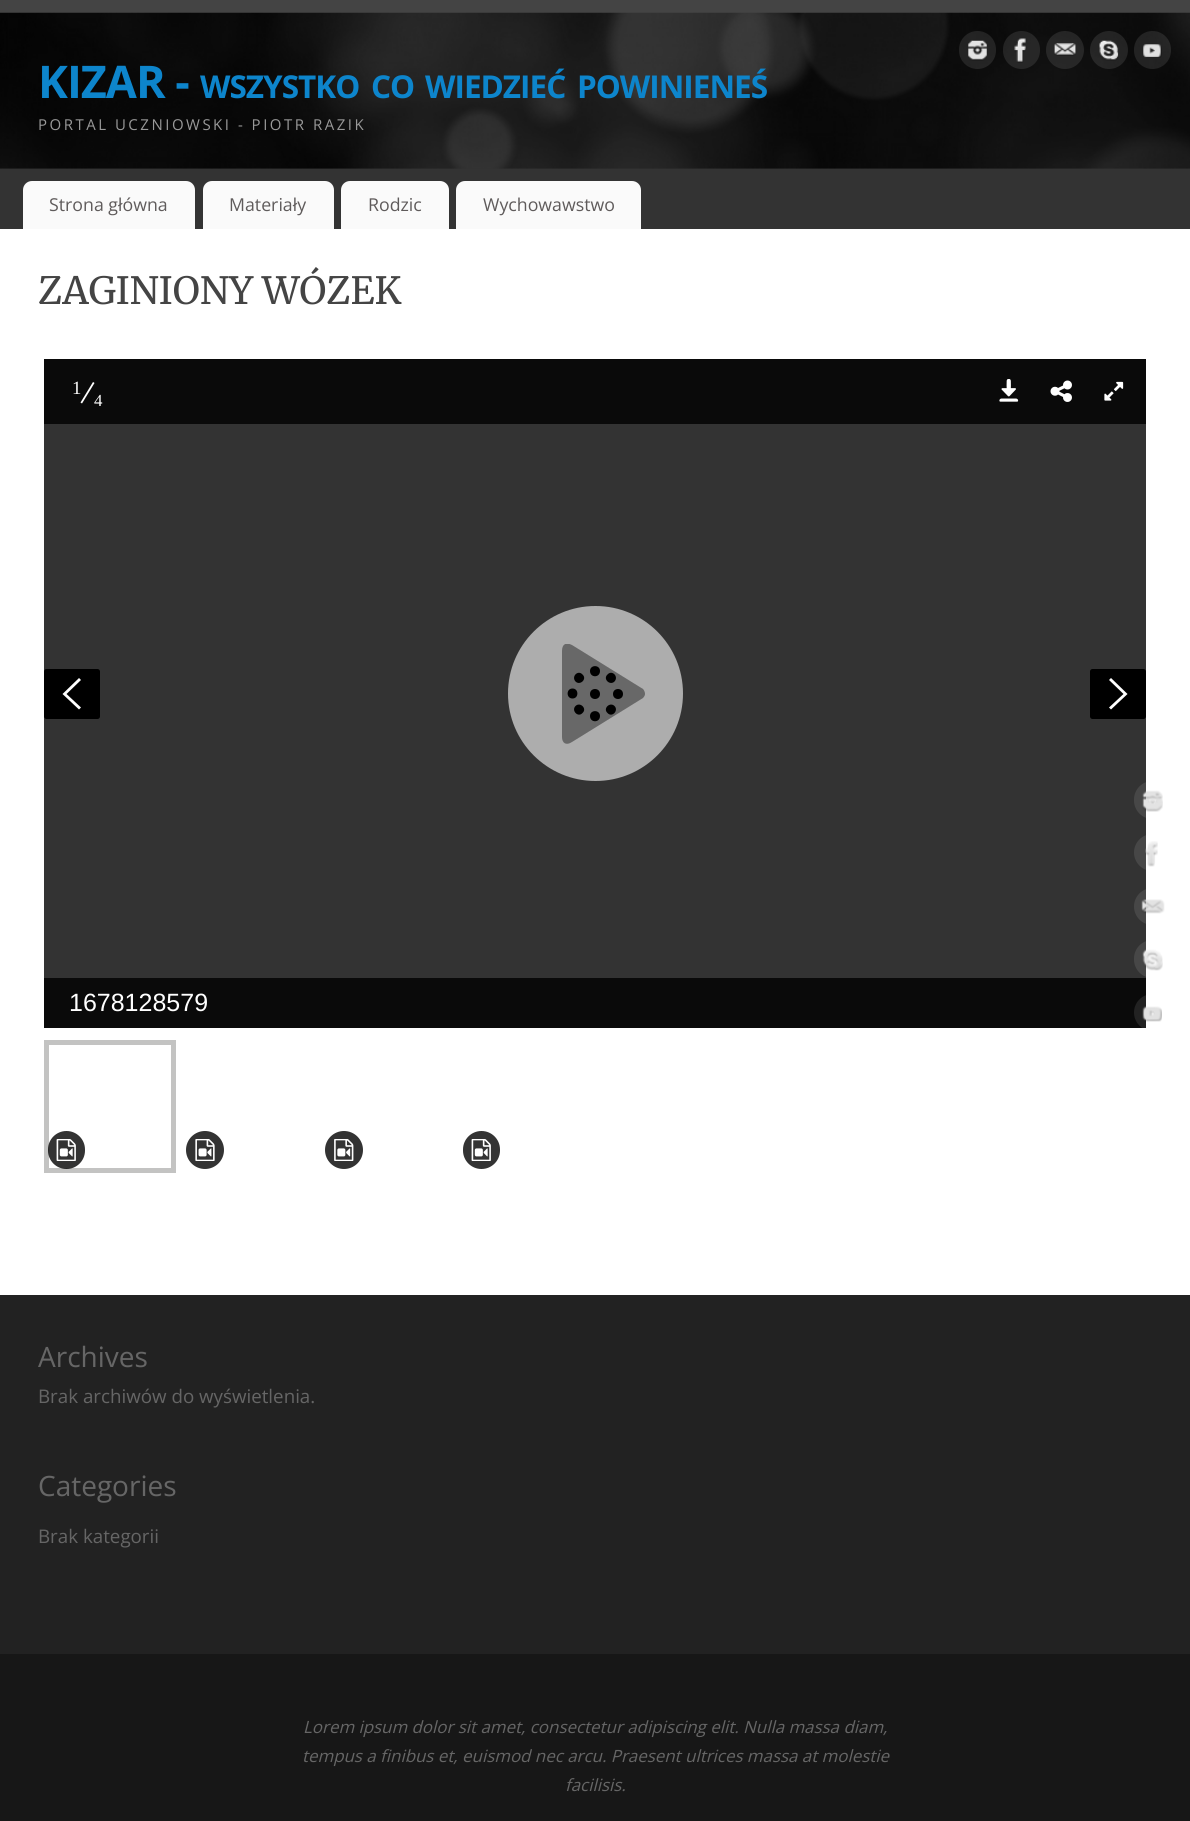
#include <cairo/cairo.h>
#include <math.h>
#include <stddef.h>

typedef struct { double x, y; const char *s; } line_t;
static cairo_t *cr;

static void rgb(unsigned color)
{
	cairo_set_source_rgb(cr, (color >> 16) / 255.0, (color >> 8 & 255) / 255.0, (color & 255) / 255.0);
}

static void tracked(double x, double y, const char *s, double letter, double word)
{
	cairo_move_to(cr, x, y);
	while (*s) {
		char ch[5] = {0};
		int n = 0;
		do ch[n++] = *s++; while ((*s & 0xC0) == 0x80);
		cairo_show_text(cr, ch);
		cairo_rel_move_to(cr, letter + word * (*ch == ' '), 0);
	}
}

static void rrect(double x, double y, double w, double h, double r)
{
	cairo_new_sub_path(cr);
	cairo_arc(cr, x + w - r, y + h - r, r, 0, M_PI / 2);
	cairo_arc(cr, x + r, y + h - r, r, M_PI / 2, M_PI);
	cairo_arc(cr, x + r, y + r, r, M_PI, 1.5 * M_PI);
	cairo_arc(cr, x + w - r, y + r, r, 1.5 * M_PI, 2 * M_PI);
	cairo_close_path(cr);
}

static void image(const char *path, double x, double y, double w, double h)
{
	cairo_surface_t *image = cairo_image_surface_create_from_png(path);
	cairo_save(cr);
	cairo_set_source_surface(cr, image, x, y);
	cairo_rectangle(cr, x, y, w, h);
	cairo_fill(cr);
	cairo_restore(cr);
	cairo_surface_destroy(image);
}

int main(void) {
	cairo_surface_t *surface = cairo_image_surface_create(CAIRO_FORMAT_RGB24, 1190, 1821);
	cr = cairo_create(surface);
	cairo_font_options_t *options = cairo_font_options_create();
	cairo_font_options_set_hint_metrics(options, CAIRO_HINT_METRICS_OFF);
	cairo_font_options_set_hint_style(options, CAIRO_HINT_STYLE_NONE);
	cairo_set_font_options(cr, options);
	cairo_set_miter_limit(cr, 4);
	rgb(0x444444);
	cairo_paint(cr);
	rgb(0x333333);
	cairo_rectangle(cr, 0, 168, 1190, 61);
	cairo_fill(cr);
	image("img/1.png", 0, 12, 1190, 157);
	cairo_set_source_rgba(cr, 1, 1, 1, 0.1);
	rrect(959, 31, 37, 38, 18.5);
	cairo_fill(cr);
	image("img/2.png", 968, 40, 19, 21);
	rrect(1003, 31, 37, 38, 18.5);
	cairo_fill(cr);
	image("img/3.png", 1014, 38, 12, 25);
	cairo_arc(cr, 1065, 50, 19, 0, 2 * M_PI);
	cairo_fill(cr);
	image("img/4.png", 1054, 43, 22, 13);
	cairo_arc(cr, 1109, 50, 19, 0, 2 * M_PI);
	cairo_fill(cr);
	image("img/5.png", 1099, 40, 20, 21);
	rrect(1134, 31, 37, 38, 18.5);
	cairo_fill(cr);
	image("img/6.png", 1143, 44, 19, 14);
	rgb(0xfafafa);
	cairo_new_path(cr);
	cairo_move_to(cr, 32, 181);
	cairo_line_to(cr, 186, 181);
	cairo_curve_to(cr, 191, 181, 195, 185, 195, 190);
	cairo_line_to(cr, 195, 229);
	cairo_line_to(cr, 23, 229);
	cairo_line_to(cr, 23, 190);
	cairo_curve_to(cr, 23, 185, 27, 181, 32, 181);
	cairo_close_path(cr);
	cairo_fill(cr);
	cairo_new_path(cr);
	cairo_move_to(cr, 212, 181);
	cairo_line_to(cr, 325, 181);
	cairo_curve_to(cr, 330, 181, 334, 185, 334, 190);
	cairo_line_to(cr, 334, 229);
	cairo_line_to(cr, 203, 229);
	cairo_line_to(cr, 203, 190);
	cairo_curve_to(cr, 203, 185, 207, 181, 212, 181);
	cairo_close_path(cr);
	cairo_fill(cr);
	cairo_new_path(cr);
	cairo_move_to(cr, 350, 181);
	cairo_line_to(cr, 440, 181);
	cairo_curve_to(cr, 445, 181, 449, 185, 449, 190);
	cairo_line_to(cr, 449, 229);
	cairo_line_to(cr, 341, 229);
	cairo_line_to(cr, 341, 190);
	cairo_curve_to(cr, 341, 185, 345, 181, 350, 181);
	cairo_close_path(cr);
	cairo_fill(cr);
	cairo_new_path(cr);
	cairo_move_to(cr, 465, 181);
	cairo_line_to(cr, 632, 181);
	cairo_curve_to(cr, 637, 181, 641, 185, 641, 190);
	cairo_line_to(cr, 641, 229);
	cairo_line_to(cr, 456, 229);
	cairo_line_to(cr, 456, 190);
	cairo_curve_to(cr, 456, 185, 460, 181, 465, 181);
	cairo_close_path(cr);
	cairo_fill(cr);
	rgb(0xffffff);
	cairo_rectangle(cr, 0, 229, 1190, 1066);
	cairo_fill(cr);
	rgb(0x0a0a0a);
	cairo_rectangle(cr, 44, 359, 1102, 65);
	cairo_fill(cr);
	rgb(0xffffff);
	cairo_new_path(cr);
	cairo_move_to(cr, 80.5, 402.5);
	cairo_line_to(cr, 93, 382);
	cairo_line_to(cr, 94.5, 383);
	cairo_line_to(cr, 82, 403.5);
	cairo_close_path(cr);
	cairo_fill(cr);
	image("img/7.png", 999, 379, 20, 23);
	image("img/8.png", 1050, 380, 22, 22);
	image("img/9.png", 1104, 381, 20, 20);
	rgb(0x333333);
	cairo_rectangle(cr, 44, 424, 1102, 554);
	cairo_fill(cr);
	rgb(0xadadad);
	cairo_arc(cr, 595.5, 693.5, 87.5, 0, 2 * M_PI);
	cairo_fill(cr);
	cairo_save(cr);
	cairo_rectangle(cr, 554, 644, 100, 100);
	cairo_clip(cr);
	rgb(0x686868);
	cairo_new_path(cr);
	cairo_move_to(cr, 643, 689);
	cairo_line_to(cr, 572, 645);
	cairo_curve_to(cr, 566, 642, 562, 644, 562, 651);
	cairo_line_to(cr, 562, 737);
	cairo_curve_to(cr, 562, 743, 566, 746, 572, 742);
	cairo_line_to(cr, 643, 698);
	cairo_curve_to(cr, 643, 698, 645, 696, 645, 694);
	cairo_curve_to(cr, 645, 691, 643, 689, 643, 689);
	cairo_close_path(cr);
	cairo_fill(cr);
	cairo_restore(cr);
	rgb(0x000000);
	cairo_arc(cr, 618, 694, 5, 0, 2 * M_PI);
	cairo_fill(cr);
	cairo_arc(cr, 595, 694, 5, 0, 2 * M_PI);
	cairo_fill(cr);
	cairo_new_path(cr);
	cairo_move_to(cr, 614.5, 706);
	cairo_curve_to(cr, 619, 710.5, 612, 718, 607.5, 713);
	cairo_curve_to(cr, 602.5, 708.5, 610, 701.5, 614.5, 706);
	cairo_close_path(cr);
	cairo_move_to(cr, 600, 716);
	cairo_curve_to(cr, 600, 723, 590, 723, 590, 716);
	cairo_curve_to(cr, 590, 709.5, 600, 709.5, 600, 716);
	cairo_close_path(cr);
	cairo_move_to(cr, 582.5, 713);
	cairo_curve_to(cr, 578, 718, 571, 710.5, 575.5, 706);
	cairo_curve_to(cr, 580, 701.5, 587.5, 708.5, 582.5, 713);
	cairo_close_path(cr);
	cairo_move_to(cr, 572.5, 698.5);
	cairo_curve_to(cr, 566, 698.5, 566, 688.5, 572.5, 688.5);
	cairo_curve_to(cr, 579, 688.5, 579, 698.5, 572.5, 698.5);
	cairo_close_path(cr);
	cairo_move_to(cr, 575.5, 681.5);
	cairo_curve_to(cr, 571, 676.5, 578, 669.5, 582.5, 674.5);
	cairo_curve_to(cr, 587.5, 679, 580, 686, 575.5, 681.5);
	cairo_close_path(cr);
	cairo_fill(cr);
	cairo_new_path(cr);
	cairo_move_to(cr, 590, 671);
	cairo_curve_to(cr, 590, 664.5, 600, 664.5, 600, 671);
	cairo_curve_to(cr, 600, 678, 590, 678, 590, 671);
	cairo_close_path(cr);
	cairo_move_to(cr, 607.5, 674.5);
	cairo_curve_to(cr, 612, 669.5, 619, 676.5, 614.5, 681.5);
	cairo_curve_to(cr, 610, 686, 602.5, 679, 607.5, 674.5);
	cairo_close_path(cr);
	cairo_fill(cr);
	rrect(44, 669, 56, 50, 2.5);
	cairo_fill(cr);
	rgb(0xffffff);
	cairo_new_path(cr);
	cairo_move_to(cr, 81, 680);
	cairo_line_to(cr, 79, 678);
	cairo_line_to(cr, 62.5, 694);
	cairo_line_to(cr, 79, 709.5);
	cairo_line_to(cr, 81, 707.5);
	cairo_line_to(cr, 66.5, 694);
	cairo_close_path(cr);
	cairo_fill(cr);
	rgb(0x000000);
	rrect(1090, 669, 56, 50, 2.5);
	cairo_fill(cr);
	rgb(0xffffff);
	cairo_new_path(cr);
	cairo_move_to(cr, 1109, 680);
	cairo_line_to(cr, 1111, 678);
	cairo_line_to(cr, 1127.5, 694);
	cairo_line_to(cr, 1111, 709.5);
	cairo_line_to(cr, 1109, 707.5);
	cairo_line_to(cr, 1123.5, 694);
	cairo_close_path(cr);
	cairo_fill(cr);
	rgb(0x0a0a0a);
	cairo_rectangle(cr, 44, 978, 1102, 50);
	cairo_fill(cr);
	cairo_rectangle(cr, 46.5, 1042.5, 127, 128);
	rgb(0xc3c3c2);
	cairo_set_line_width(cr, 5);
	cairo_stroke(cr);
	cairo_set_source_rgba(cr, 0, 0, 0, 0.8);
	rrect(48, 1131, 37, 38, 18.5);
	cairo_fill(cr);
	image("img/10.png", 56, 1139, 20, 22);
	rgb(0x333333);
	cairo_arc(cr, 205, 1150, 19, 0, 2 * M_PI);
	cairo_fill(cr);
	image("img/11.png", 195, 1139, 20, 22);
	cairo_arc(cr, 344, 1150, 19, 0, 2 * M_PI);
	cairo_fill(cr);
	image("img/12.png", 334, 1139, 20, 22);
	rrect(463, 1131, 37, 38, 18.5);
	cairo_fill(cr);
	image("img/10.png", 471, 1139, 20, 22);
	cairo_set_source_rgba(cr, 1, 1, 1, 0.1);
	rrect(1134, 781, 37, 38, 18.5);
	cairo_fill(cr);
	image("img/13.png", 1142, 790, 21, 22);
	cairo_arc(cr, 1152.5, 852.5, 18.5, 0, 2 * M_PI);
	cairo_fill(cr);
	image("img/14.png", 1145, 841, 13, 26);
	cairo_arc(cr, 1152.5, 906.5, 18.5, 0, 2 * M_PI);
	cairo_fill(cr);
	image("img/15.png", 1141, 899, 24, 15);
	rrect(1134, 940, 37, 38, 18.5);
	cairo_fill(cr);
	image("img/16.png", 1142, 949, 21, 22);
	cairo_arc(cr, 1152.5, 1012.5, 18.5, 0, 2 * M_PI);
	cairo_fill(cr);
	image("img/17.png", 1142, 1006, 20, 16);
	rgb(0x222222);
	cairo_rectangle(cr, 0, 1295, 1190, 359);
	cairo_fill(cr);
	rgb(0x171717);
	cairo_rectangle(cr, 0, 1654, 1190, 167);
	cairo_fill(cr);
	cairo_select_font_face(cr, "Open Sans", CAIRO_FONT_SLANT_NORMAL, CAIRO_FONT_WEIGHT_BOLD);
	cairo_set_font_size(cr, 45);
	rgb(0x0d85cc);
	tracked(38, 98, "KIZAR -", -1, 0);
	cairo_set_font_size(cr, 31.5);
	{
		static const line_t items[] = {
			{200, 98, "WSZYSTKO"},
			{371, 98, "CO"},
			{425, 98, "WIEDZIEĆ"},
			{577, 98, "POWINIENEŚ"},
		};
		for (size_t i = 0; i < sizeof items / sizeof *items; i++) {
			tracked(items[i].x, items[i].y, items[i].s, -1, 0);
		}
	}
	cairo_select_font_face(cr, "Open Sans", CAIRO_FONT_SLANT_NORMAL, CAIRO_FONT_WEIGHT_NORMAL);
	cairo_set_font_size(cr, 15);
	rgb(0x999999);
	tracked(38, 130, "PORTAL UCZNIOWSKI - PIOTR RAZIK", 2.5, 0);
	cairo_set_font_size(cr, 17.75);
	rgb(0x5f5b5b);
	{
		static const line_t items[] = {
			{49, 211, "Strona główna"},
			{229, 211, "Materiały"},
			{368, 211, "Rodzic"},
			{483, 211, "Wychowawstwo"},
		};
		for (size_t i = 0; i < sizeof items / sizeof *items; i++) {
			cairo_move_to(cr, items[i].x, items[i].y);
			cairo_show_text(cr, items[i].s);
		}
	}
	cairo_select_font_face(cr, "Merriweather", CAIRO_FONT_SLANT_NORMAL, CAIRO_FONT_WEIGHT_NORMAL);
	cairo_set_font_size(cr, 37.5);
	rgb(0x444444);
	cairo_move_to(cr, 38, 304);
	cairo_show_text(cr, "ZAGINIONY WÓZEK");
	cairo_select_font_face(cr, "Liberation Serif", CAIRO_FONT_SLANT_NORMAL, CAIRO_FONT_WEIGHT_NORMAL);
	cairo_set_font_size(cr, 18.75);
	rgb(0xffffff);
	cairo_move_to(cr, 72, 394);
	cairo_show_text(cr, "1");
	cairo_set_font_size(cr, 16.9);
	cairo_move_to(cr, 94, 406);
	cairo_show_text(cr, "4");
	cairo_select_font_face(cr, "Liberation Sans", CAIRO_FONT_SLANT_NORMAL, CAIRO_FONT_WEIGHT_NORMAL);
	cairo_set_font_size(cr, 25);
	cairo_move_to(cr, 69, 1011);
	cairo_show_text(cr, "1678128579");
	cairo_select_font_face(cr, "Open Sans", CAIRO_FONT_SLANT_NORMAL, CAIRO_FONT_WEIGHT_NORMAL);
	cairo_set_font_size(cr, 28);
	rgb(0x666666);
	cairo_move_to(cr, 38, 1367);
	cairo_show_text(cr, "Archives");
	cairo_set_font_size(cr, 18.75);
	cairo_move_to(cr, 38, 1403);
	cairo_show_text(cr, "Brak archiwów do wyświetlenia.");
	cairo_set_font_size(cr, 28);
	cairo_move_to(cr, 38, 1496);
	cairo_show_text(cr, "Categories");
	cairo_set_font_size(cr, 18.75);
	cairo_move_to(cr, 38, 1543);
	cairo_show_text(cr, "Brak kategorii");
	cairo_select_font_face(cr, "Open Sans", CAIRO_FONT_SLANT_ITALIC, CAIRO_FONT_WEIGHT_NORMAL);
	cairo_set_font_size(cr, 16.9);
	{
		static const line_t items[] = {
			{303, 1733, "Lorem ipsum dolor sit amet, consectetur adipiscing elit. Nulla massa diam,"},
			{302, 1762, "tempus a finibus et, euismod nec arcu. Praesent ultrices massa at molestie"},
			{565, 1791, "facilisis."},
		};
		for (size_t i = 0; i < sizeof items / sizeof *items; i++) {
			cairo_move_to(cr, items[i].x, items[i].y);
			cairo_show_text(cr, items[i].s);
		}
	}
	cairo_surface_write_to_png(surface, "page.png");
	cairo_font_options_destroy(options);
	cairo_destroy(cr);
	cairo_surface_destroy(surface);
	return 0;
}
